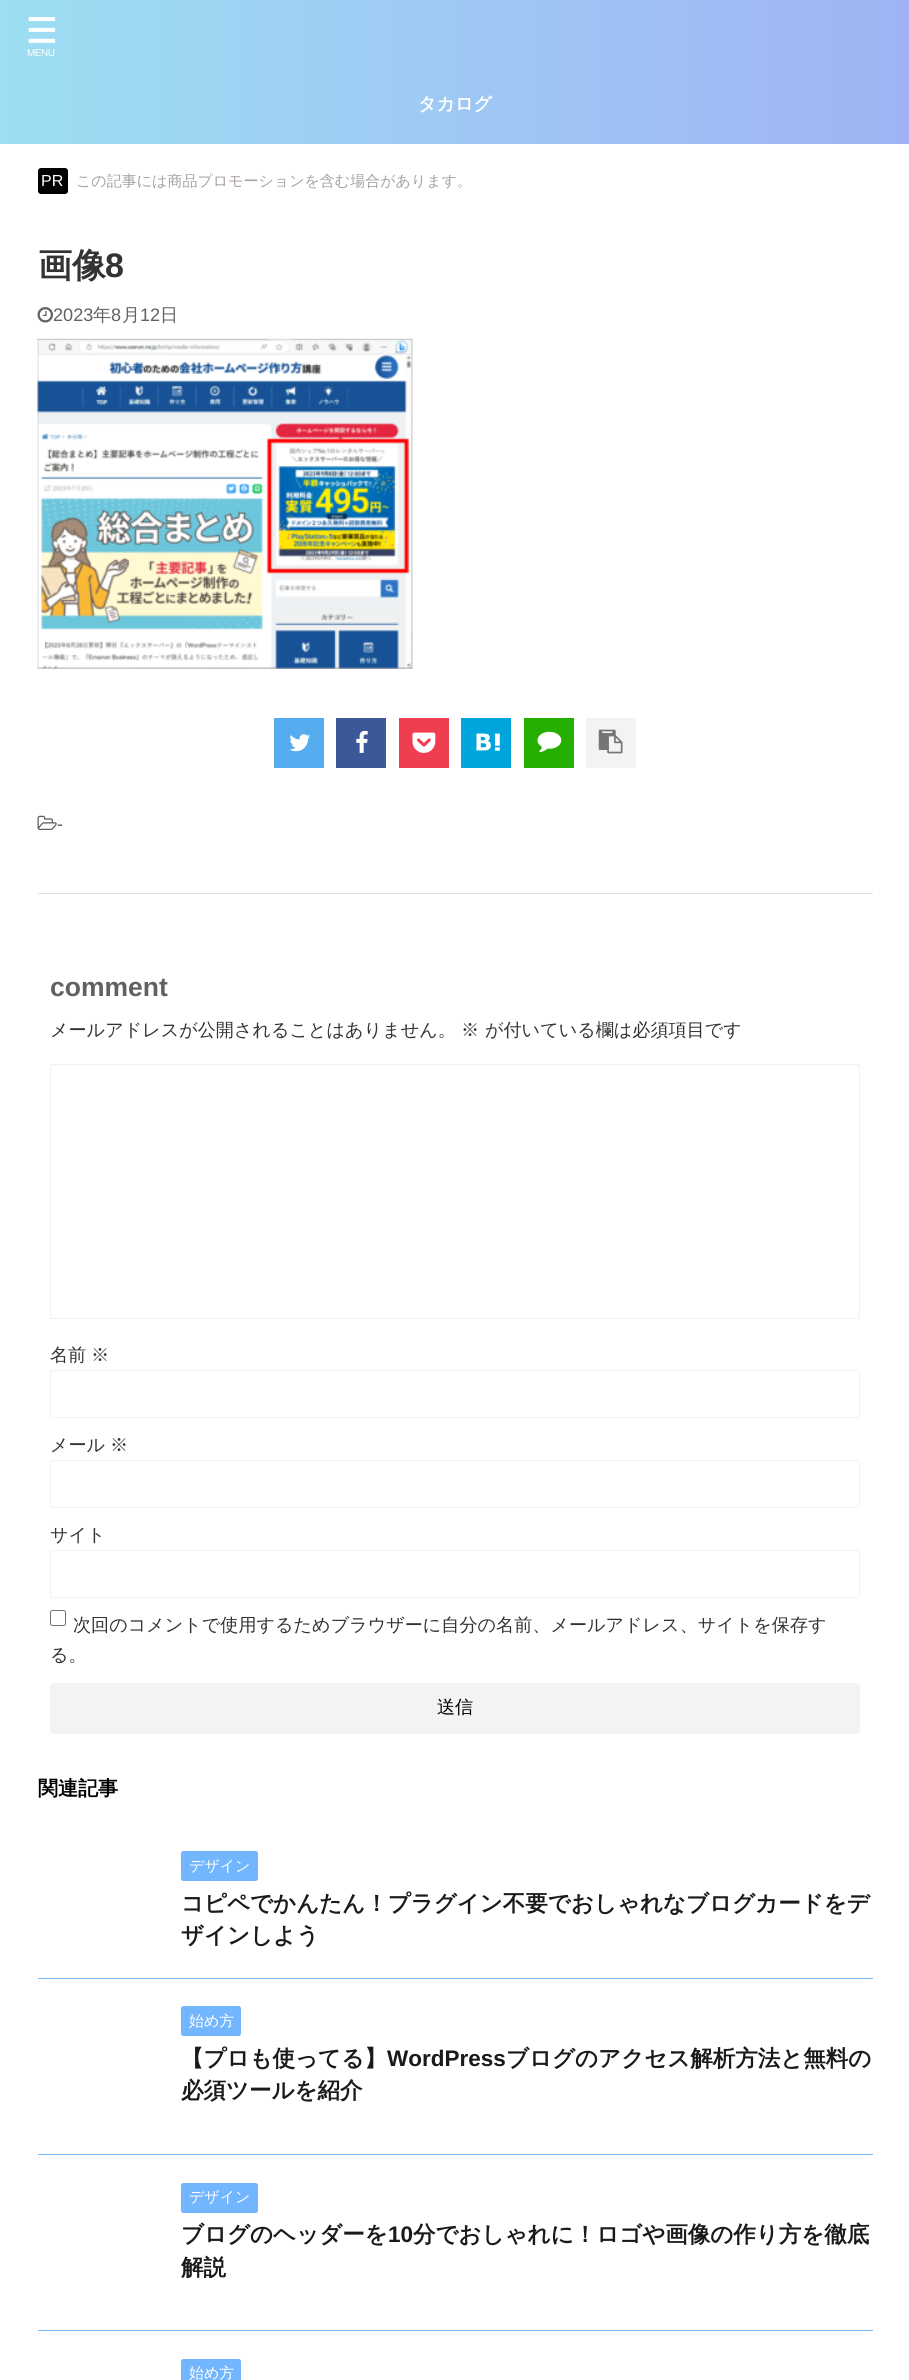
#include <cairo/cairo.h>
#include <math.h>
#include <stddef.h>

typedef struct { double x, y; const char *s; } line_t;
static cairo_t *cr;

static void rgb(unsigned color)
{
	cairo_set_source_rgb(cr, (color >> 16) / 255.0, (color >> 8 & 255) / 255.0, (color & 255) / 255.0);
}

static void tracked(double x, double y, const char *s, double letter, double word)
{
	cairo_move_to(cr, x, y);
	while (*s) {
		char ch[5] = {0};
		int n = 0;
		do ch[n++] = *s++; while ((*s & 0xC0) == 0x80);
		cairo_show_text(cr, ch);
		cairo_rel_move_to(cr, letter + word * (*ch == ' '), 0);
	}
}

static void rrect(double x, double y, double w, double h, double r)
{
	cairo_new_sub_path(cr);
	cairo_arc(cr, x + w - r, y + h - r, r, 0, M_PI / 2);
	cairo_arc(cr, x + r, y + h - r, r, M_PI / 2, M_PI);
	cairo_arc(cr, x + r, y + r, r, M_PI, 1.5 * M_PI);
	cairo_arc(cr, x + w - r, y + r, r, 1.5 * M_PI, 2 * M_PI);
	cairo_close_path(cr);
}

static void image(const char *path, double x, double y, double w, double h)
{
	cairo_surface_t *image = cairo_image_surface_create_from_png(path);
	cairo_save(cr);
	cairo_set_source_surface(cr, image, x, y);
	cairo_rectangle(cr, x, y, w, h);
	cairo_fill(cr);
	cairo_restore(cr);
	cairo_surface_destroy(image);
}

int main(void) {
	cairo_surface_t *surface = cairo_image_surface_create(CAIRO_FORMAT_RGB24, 909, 2380);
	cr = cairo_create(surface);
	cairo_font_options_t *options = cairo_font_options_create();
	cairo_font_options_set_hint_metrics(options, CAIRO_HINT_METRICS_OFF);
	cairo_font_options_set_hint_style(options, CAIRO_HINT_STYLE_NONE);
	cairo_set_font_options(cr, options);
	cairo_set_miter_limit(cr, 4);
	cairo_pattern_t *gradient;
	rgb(0xffffff);
	cairo_paint(cr);
	gradient = cairo_pattern_create_linear(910, 72, 0, 72);
	cairo_pattern_add_color_stop_rgba(gradient, 0, 0.624, 0.702, 0.957, 1);
	cairo_pattern_add_color_stop_rgba(gradient, 1, 0.616, 0.871, 0.949, 1);
	cairo_set_source(cr, gradient);
	cairo_pattern_destroy(gradient);
	cairo_rectangle(cr, 0, 0, 909, 144);
	cairo_fill(cr);
	image("img/1.png", 28, 17, 28, 26);
	rgb(0x000000);
	rrect(38, 168, 30, 26, 3);
	cairo_fill(cr);
	image("img/2.png", 37, 307, 16, 16);
	image("img/3.png", 37, 338, 376, 331);
	rgb(0x55acee);
	cairo_rectangle(cr, 274, 718, 50, 50);
	cairo_fill(cr);
	image("img/4.png", 289, 734, 21, 18);
	rgb(0x3b5998);
	cairo_rectangle(cr, 336, 718, 50, 50);
	cairo_fill(cr);
	image("img/5.png", 356, 730, 12, 23);
	rgb(0xf03e51);
	cairo_rectangle(cr, 399, 718, 50, 50);
	cairo_fill(cr);
	image("img/6.png", 412, 732, 24, 21);
	rgb(0x00a5de);
	cairo_rectangle(cr, 461, 718, 50, 50);
	cairo_fill(cr);
	image("img/7.png", 476, 733, 24, 18);
	rgb(0x25af00);
	cairo_rectangle(cr, 524, 718, 50, 50);
	cairo_fill(cr);
	image("img/8.png", 537, 731, 25, 22);
	rgb(0xf3f3f3);
	cairo_rectangle(cr, 586, 718, 50, 50);
	cairo_fill(cr);
	image("img/9.png", 598, 729, 25, 25);
	image("img/10.png", 37, 815, 20, 15);
	rgb(0xe0e0e0);
	cairo_rectangle(cr, 38, 893, 835, 1);
	cairo_fill(cr);
	cairo_rectangle(cr, 50.5, 1064.5, 809, 254);
	rgb(0xf2f2f2);
	cairo_set_line_width(cr, 1);
	cairo_stroke(cr);
	rrect(50.5, 1370.5, 809, 47, 2);
	cairo_stroke(cr);
	rrect(50.5, 1460.5, 809, 47, 2);
	cairo_stroke(cr);
	rrect(50.5, 1550.5, 809, 47, 2);
	cairo_stroke(cr);
	rrect(50.5, 1610.5, 15, 15, 2);
	rgb(0x767676);
	cairo_stroke(cr);
	rgb(0xf3f3f3);
	rrect(50.5, 1683.5, 809, 50, 3.5);
	cairo_fill_preserve(cr);
	rgb(0xf2f2f2);
	cairo_stroke(cr);
	rgb(0x72b6ff);
	cairo_rectangle(cr, 38, 1978, 835, 1);
	cairo_fill(cr);
	rrect(181, 1851, 77, 30, 2.5);
	cairo_fill(cr);
	cairo_rectangle(cr, 38, 2154, 835, 1);
	cairo_fill(cr);
	rrect(181, 2006, 60, 30, 2.5);
	cairo_fill(cr);
	cairo_rectangle(cr, 38, 2330, 835, 1);
	cairo_fill(cr);
	rrect(181, 2183, 77, 30, 2.5);
	cairo_fill(cr);
	rrect(181, 2359, 60, 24, 2.5);
	cairo_fill(cr);
	cairo_select_font_face(cr, "Liberation Sans", CAIRO_FONT_SLANT_NORMAL, CAIRO_FONT_WEIGHT_NORMAL);
	cairo_set_font_size(cr, 10);
	rgb(0xffffff);
	tracked(27, 56, "MENU", -0.5, 0);
	cairo_select_font_face(cr, "WenQuanYi Zen Hei", CAIRO_FONT_SLANT_NORMAL, CAIRO_FONT_WEIGHT_BOLD);
	cairo_set_font_size(cr, 18.1);
	cairo_move_to(cr, 418, 110);
	cairo_show_text(cr, "タカログ");
	cairo_select_font_face(cr, "Liberation Sans", CAIRO_FONT_SLANT_NORMAL, CAIRO_FONT_WEIGHT_NORMAL);
	cairo_set_font_size(cr, 16);
	cairo_move_to(cr, 41, 186);
	cairo_show_text(cr, "PR");
	cairo_select_font_face(cr, "WenQuanYi Zen Hei Medium", CAIRO_FONT_SLANT_NORMAL, CAIRO_FONT_WEIGHT_NORMAL);
	cairo_set_font_size(cr, 15);
	rgb(0xa7a0a0);
	cairo_move_to(cr, 76, 186);
	cairo_show_text(cr, "この記事には商品プロモーションを含む場合があります。");
	cairo_select_font_face(cr, "WenQuanYi Zen Hei", CAIRO_FONT_SLANT_NORMAL, CAIRO_FONT_WEIGHT_BOLD);
	cairo_set_font_size(cr, 34);
	rgb(0x333333);
	cairo_move_to(cr, 38, 277);
	cairo_show_text(cr, "画像");
	cairo_select_font_face(cr, "Liberation Sans", CAIRO_FONT_SLANT_NORMAL, CAIRO_FONT_WEIGHT_BOLD);
	cairo_move_to(cr, 105, 277);
	cairo_show_text(cr, "8");
	cairo_select_font_face(cr, "Liberation Sans", CAIRO_FONT_SLANT_NORMAL, CAIRO_FONT_WEIGHT_NORMAL);
	cairo_set_font_size(cr, 18.1);
	rgb(0x616161);
	cairo_move_to(cr, 53, 321);
	cairo_show_text(cr, "2023");
	cairo_select_font_face(cr, "WenQuanYi Zen Hei Medium", CAIRO_FONT_SLANT_NORMAL, CAIRO_FONT_WEIGHT_NORMAL);
	cairo_move_to(cr, 93, 321);
	cairo_show_text(cr, "年");
	cairo_select_font_face(cr, "Liberation Sans", CAIRO_FONT_SLANT_NORMAL, CAIRO_FONT_WEIGHT_NORMAL);
	cairo_move_to(cr, 111, 321);
	cairo_show_text(cr, "8");
	cairo_select_font_face(cr, "WenQuanYi Zen Hei Medium", CAIRO_FONT_SLANT_NORMAL, CAIRO_FONT_WEIGHT_NORMAL);
	cairo_move_to(cr, 122, 321);
	cairo_show_text(cr, "月");
	cairo_select_font_face(cr, "Liberation Sans", CAIRO_FONT_SLANT_NORMAL, CAIRO_FONT_WEIGHT_NORMAL);
	cairo_move_to(cr, 140, 321);
	cairo_show_text(cr, "12");
	cairo_select_font_face(cr, "WenQuanYi Zen Hei Medium", CAIRO_FONT_SLANT_NORMAL, CAIRO_FONT_WEIGHT_NORMAL);
	cairo_move_to(cr, 160, 321);
	cairo_show_text(cr, "日");
	cairo_select_font_face(cr, "Liberation Sans", CAIRO_FONT_SLANT_NORMAL, CAIRO_FONT_WEIGHT_NORMAL);
	cairo_move_to(cr, 57, 830);
	cairo_show_text(cr, "-");
	cairo_select_font_face(cr, "Liberation Sans", CAIRO_FONT_SLANT_NORMAL, CAIRO_FONT_WEIGHT_BOLD);
	cairo_set_font_size(cr, 26.5);
	cairo_move_to(cr, 50, 996);
	cairo_show_text(cr, "comment");
	cairo_select_font_face(cr, "WenQuanYi Zen Hei Medium", CAIRO_FONT_SLANT_NORMAL, CAIRO_FONT_WEIGHT_NORMAL);
	cairo_set_font_size(cr, 18.1);
	rgb(0x333333);
	{
		static const line_t items[] = {
			{50, 1036, "メールアドレスが公開されることはありません。"},
			{461, 1036, "※"},
			{485, 1036, "が付いている欄は必須項目です"},
			{50, 1361, "名前"},
			{91, 1361, "※"},
			{50, 1451, "メール"},
			{110, 1451, "※"},
			{50, 1541, "サイト"},
			{73, 1631, "次回のコメントで使用するためブラウザーに自分の名前、メールアドレス、サイトを保存す"},
			{50, 1661, "る。"},
		};
		for (size_t i = 0; i < sizeof items / sizeof *items; i++) {
			cairo_move_to(cr, items[i].x, items[i].y);
			cairo_show_text(cr, items[i].s);
		}
	}
	rgb(0x000000);
	cairo_move_to(cr, 437, 1713);
	cairo_show_text(cr, "送信");
	cairo_select_font_face(cr, "WenQuanYi Zen Hei", CAIRO_FONT_SLANT_NORMAL, CAIRO_FONT_WEIGHT_BOLD);
	cairo_set_font_size(cr, 20);
	cairo_move_to(cr, 38, 1795);
	cairo_show_text(cr, "関連記事");
	cairo_select_font_face(cr, "WenQuanYi Zen Hei Medium", CAIRO_FONT_SLANT_NORMAL, CAIRO_FONT_WEIGHT_NORMAL);
	cairo_set_font_size(cr, 15);
	rgb(0xffffff);
	cairo_move_to(cr, 189, 1871);
	cairo_show_text(cr, "デザイン");
	cairo_select_font_face(cr, "WenQuanYi Zen Hei", CAIRO_FONT_SLANT_NORMAL, CAIRO_FONT_WEIGHT_BOLD);
	cairo_set_font_size(cr, 22.5);
	rgb(0x1a1a1a);
	cairo_move_to(cr, 181, 1911);
	cairo_show_text(cr, "コピペでかんたん！プラグイン不要でおしゃれなブログカードをデ");
	cairo_move_to(cr, 181, 1943);
	cairo_show_text(cr, "ザインしよう");
	cairo_select_font_face(cr, "WenQuanYi Zen Hei Medium", CAIRO_FONT_SLANT_NORMAL, CAIRO_FONT_WEIGHT_NORMAL);
	cairo_set_font_size(cr, 15);
	rgb(0xffffff);
	cairo_move_to(cr, 189, 2026);
	cairo_show_text(cr, "始め方");
	cairo_select_font_face(cr, "WenQuanYi Zen Hei", CAIRO_FONT_SLANT_NORMAL, CAIRO_FONT_WEIGHT_BOLD);
	cairo_set_font_size(cr, 22.5);
	rgb(0x1a1a1a);
	cairo_move_to(cr, 181, 2066);
	cairo_show_text(cr, "【プロも使ってる】");
	cairo_select_font_face(cr, "Liberation Sans", CAIRO_FONT_SLANT_NORMAL, CAIRO_FONT_WEIGHT_BOLD);
	cairo_move_to(cr, 387, 2066);
	cairo_show_text(cr, "WordPress");
	cairo_select_font_face(cr, "WenQuanYi Zen Hei", CAIRO_FONT_SLANT_NORMAL, CAIRO_FONT_WEIGHT_BOLD);
	cairo_move_to(cr, 506, 2066);
	cairo_show_text(cr, "ブログのアクセス解析方法と無料の");
	cairo_move_to(cr, 181, 2098);
	cairo_show_text(cr, "必須ツールを紹介");
	cairo_select_font_face(cr, "WenQuanYi Zen Hei Medium", CAIRO_FONT_SLANT_NORMAL, CAIRO_FONT_WEIGHT_NORMAL);
	cairo_set_font_size(cr, 15);
	rgb(0xffffff);
	cairo_move_to(cr, 189, 2202);
	cairo_show_text(cr, "デザイン");
	cairo_select_font_face(cr, "WenQuanYi Zen Hei", CAIRO_FONT_SLANT_NORMAL, CAIRO_FONT_WEIGHT_BOLD);
	cairo_set_font_size(cr, 22.5);
	rgb(0x1a1a1a);
	cairo_move_to(cr, 181, 2242);
	cairo_show_text(cr, "ブログのヘッダーを");
	cairo_select_font_face(cr, "Liberation Sans", CAIRO_FONT_SLANT_NORMAL, CAIRO_FONT_WEIGHT_BOLD);
	cairo_move_to(cr, 388, 2242);
	cairo_show_text(cr, "10");
	cairo_select_font_face(cr, "WenQuanYi Zen Hei", CAIRO_FONT_SLANT_NORMAL, CAIRO_FONT_WEIGHT_BOLD);
	cairo_move_to(cr, 413, 2242);
	cairo_show_text(cr, "分でおしゃれに！ロゴや画像の作り方を徹底");
	cairo_move_to(cr, 181, 2275);
	cairo_show_text(cr, "解説");
	cairo_select_font_face(cr, "WenQuanYi Zen Hei Medium", CAIRO_FONT_SLANT_NORMAL, CAIRO_FONT_WEIGHT_NORMAL);
	cairo_set_font_size(cr, 15);
	rgb(0xffffff);
	cairo_move_to(cr, 189, 2378);
	cairo_show_text(cr, "始め方");
	cairo_surface_write_to_png(surface, "page.png");
	cairo_font_options_destroy(options);
	cairo_destroy(cr);
	cairo_surface_destroy(surface);
	return 0;
}
